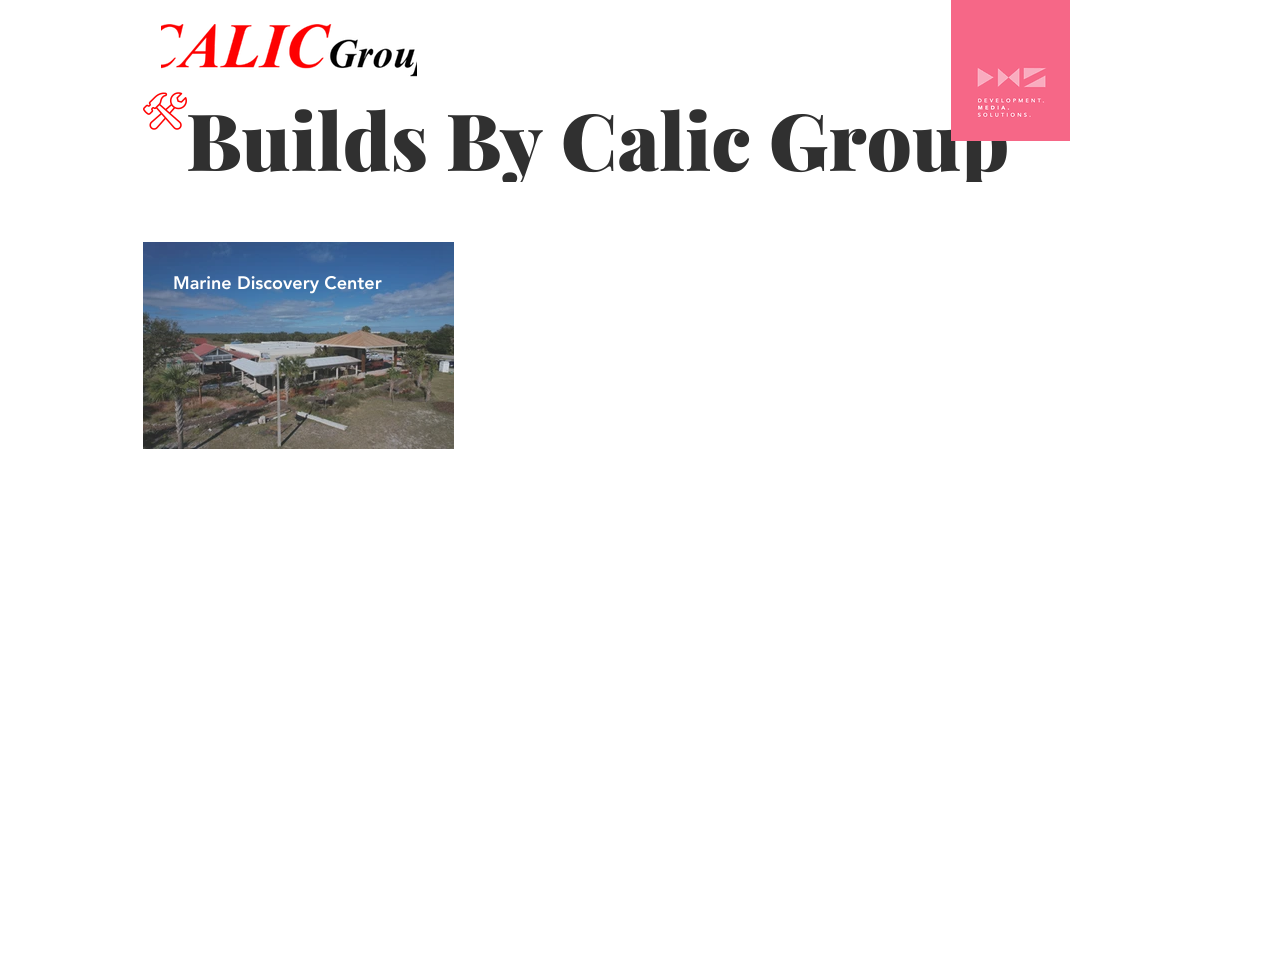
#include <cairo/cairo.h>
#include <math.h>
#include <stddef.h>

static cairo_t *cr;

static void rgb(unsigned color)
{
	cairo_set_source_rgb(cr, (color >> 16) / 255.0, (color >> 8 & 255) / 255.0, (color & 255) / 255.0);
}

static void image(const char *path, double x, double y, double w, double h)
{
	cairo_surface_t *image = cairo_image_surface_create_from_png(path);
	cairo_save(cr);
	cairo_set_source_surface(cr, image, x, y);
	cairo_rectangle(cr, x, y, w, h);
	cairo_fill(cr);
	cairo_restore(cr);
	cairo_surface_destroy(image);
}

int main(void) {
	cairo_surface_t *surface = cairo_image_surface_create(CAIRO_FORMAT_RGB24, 1266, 957);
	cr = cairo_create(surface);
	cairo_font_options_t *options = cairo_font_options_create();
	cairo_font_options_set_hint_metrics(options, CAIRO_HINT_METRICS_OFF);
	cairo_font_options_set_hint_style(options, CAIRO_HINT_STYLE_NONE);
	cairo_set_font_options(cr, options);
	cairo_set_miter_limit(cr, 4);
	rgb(0xffffff);
	cairo_paint(cr);
	image("img/1.png", 161, 24, 256, 53);
	image("img/3.png", 143, 92, 44, 38);
	image("img/4.png", 143, 242, 311, 207);
	cairo_select_font_face(cr, "Playfair Display Black", CAIRO_FONT_SLANT_NORMAL, CAIRO_FONT_WEIGHT_NORMAL);
	cairo_set_font_size(cr, 79);
	rgb(0x303030);
	cairo_move_to(cr, 186, 171);
	cairo_show_text(cr, "Builds By Calic Group");
	image("img/2.png", 951, 0, 119, 141);
	rgb(0xffffff);
	cairo_rectangle(cr, 503, 182, 485, 4);
	cairo_fill(cr);
	cairo_select_font_face(cr, "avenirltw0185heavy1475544 Black", CAIRO_FONT_SLANT_NORMAL, CAIRO_FONT_WEIGHT_NORMAL);
	cairo_set_font_size(cr, 18);
	cairo_move_to(cr, 173, 289);
	cairo_show_text(cr, "Marine Discovery Center");
	cairo_surface_write_to_png(surface, "page.png");
	cairo_font_options_destroy(options);
	cairo_destroy(cr);
	cairo_surface_destroy(surface);
	return 0;
}
